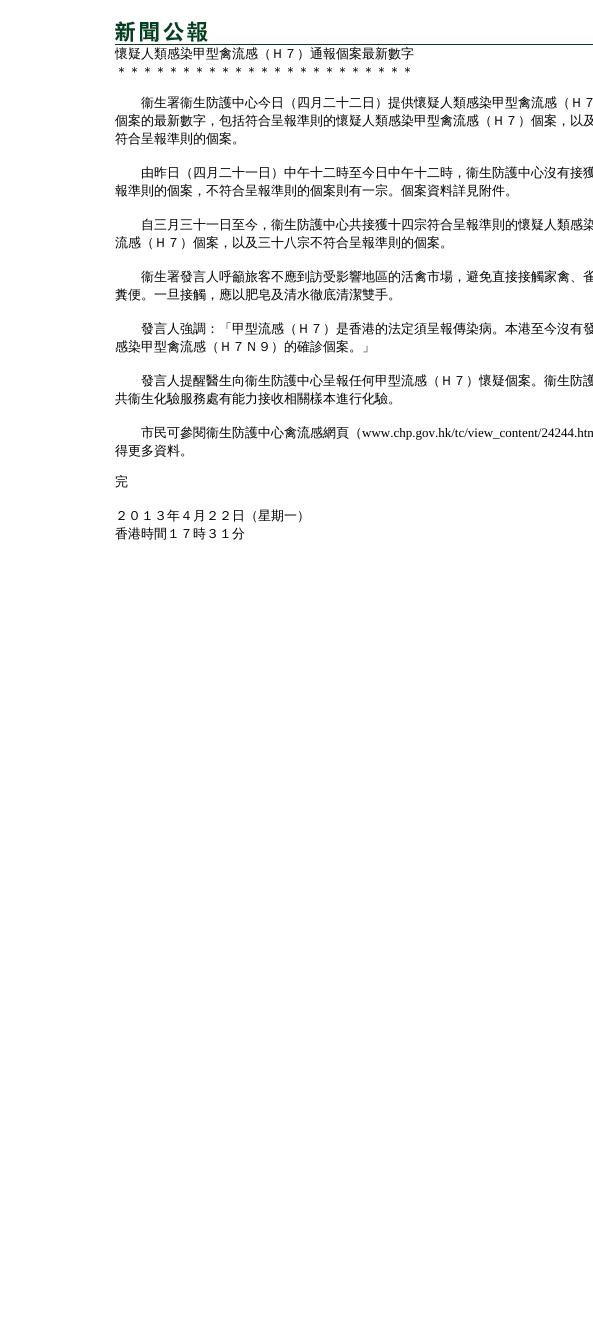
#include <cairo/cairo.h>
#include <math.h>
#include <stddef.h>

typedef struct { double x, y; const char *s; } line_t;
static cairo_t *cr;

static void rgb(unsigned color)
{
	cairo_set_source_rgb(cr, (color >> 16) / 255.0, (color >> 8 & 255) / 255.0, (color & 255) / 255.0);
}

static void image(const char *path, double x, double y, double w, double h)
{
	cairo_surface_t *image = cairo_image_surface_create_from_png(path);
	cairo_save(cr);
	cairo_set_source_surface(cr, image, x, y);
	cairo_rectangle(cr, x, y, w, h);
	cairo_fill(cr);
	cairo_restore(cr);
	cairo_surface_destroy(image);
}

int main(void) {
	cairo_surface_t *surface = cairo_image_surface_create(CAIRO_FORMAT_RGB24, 593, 1324);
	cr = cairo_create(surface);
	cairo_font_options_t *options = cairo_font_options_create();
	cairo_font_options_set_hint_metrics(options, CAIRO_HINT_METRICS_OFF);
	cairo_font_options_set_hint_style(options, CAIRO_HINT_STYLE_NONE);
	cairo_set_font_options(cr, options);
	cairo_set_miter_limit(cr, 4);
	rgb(0xffffff);
	cairo_paint(cr);
	rgb(0x053e21);
	cairo_rectangle(cr, 115, 44, 478, 1);
	cairo_fill(cr);
	image("img/1.png", 115, 21, 93, 21);
	cairo_select_font_face(cr, "WenQuanYi Zen Hei Medium", CAIRO_FONT_SLANT_NORMAL, CAIRO_FONT_WEIGHT_NORMAL);
	cairo_set_font_size(cr, 13);
	rgb(0x000000);
	{
		static const line_t items[] = {
			{115, 58, "懷疑人類感染甲型禽流感（Ｈ７）通報個案最新數字"},
			{115, 76, "＊＊＊＊＊＊＊＊＊＊＊＊＊＊＊＊＊＊＊＊＊＊＊"},
			{141, 107, "衞生署衞生防護中心今日（四月二十二日）提供懷疑人類感染甲型禽流感（Ｈ７"},
			{115, 125, "個案的最新數字，包括符合呈報準則的懷疑人類感染甲型禽流感（Ｈ７）個案，以及"},
			{115, 143, "符合呈報準則的個案。"},
			{141, 177, "由昨日（四月二十一日）中午十二時至今日中午十二時，衞生防護中心沒有接獲"},
			{115, 195, "報準則的個案，不符合呈報準則的個案則有一宗。個案資料詳見附件。"},
			{141, 229, "自三月三十一日至今，衞生防護中心共接獲十四宗符合呈報準則的懷疑人類感染"},
			{115, 247, "流感（Ｈ７）個案，以及三十八宗不符合呈報準則的個案。"},
			{141, 281, "衞生署發言人呼籲旅客不應到訪受影響地區的活禽市場，避免直接接觸家禽、雀"},
			{115, 299, "糞便。一旦接觸，應以肥皂及清水徹底清潔雙手。"},
			{141, 333, "發言人強調：「甲型流感（Ｈ７）是香港的法定須呈報傳染病。本港至今沒有發"},
			{115, 351, "感染甲型禽流感（Ｈ７Ｎ９）的確診個案。」"},
			{141, 385, "發言人提醒醫生向衞生防護中心呈報任何甲型流感（Ｈ７）懷疑個案。衞生防護"},
			{115, 403, "共衞生化驗服務處有能力接收相關樣本進行化驗。"},
			{141, 437, "市民可參閱衞生防護中心禽流感網頁（"},
		};
		for (size_t i = 0; i < sizeof items / sizeof *items; i++) {
			cairo_move_to(cr, items[i].x, items[i].y);
			cairo_show_text(cr, items[i].s);
		}
	}
	cairo_select_font_face(cr, "Liberation Serif", CAIRO_FONT_SLANT_NORMAL, CAIRO_FONT_WEIGHT_NORMAL);
	cairo_move_to(cr, 362, 437);
	cairo_show_text(cr, "www.chp.gov.hk/tc/view_content/24244.htm");
	cairo_select_font_face(cr, "WenQuanYi Zen Hei Medium", CAIRO_FONT_SLANT_NORMAL, CAIRO_FONT_WEIGHT_NORMAL);
	{
		static const line_t items[] = {
			{115, 455, "得更多資料。"},
			{115, 486, "完"},
			{115, 520, "２０１３年４月２２日（星期一）"},
			{115, 538, "香港時間１７時３１分"},
		};
		for (size_t i = 0; i < sizeof items / sizeof *items; i++) {
			cairo_move_to(cr, items[i].x, items[i].y);
			cairo_show_text(cr, items[i].s);
		}
	}
	cairo_surface_write_to_png(surface, "page.png");
	cairo_font_options_destroy(options);
	cairo_destroy(cr);
	cairo_surface_destroy(surface);
	return 0;
}
